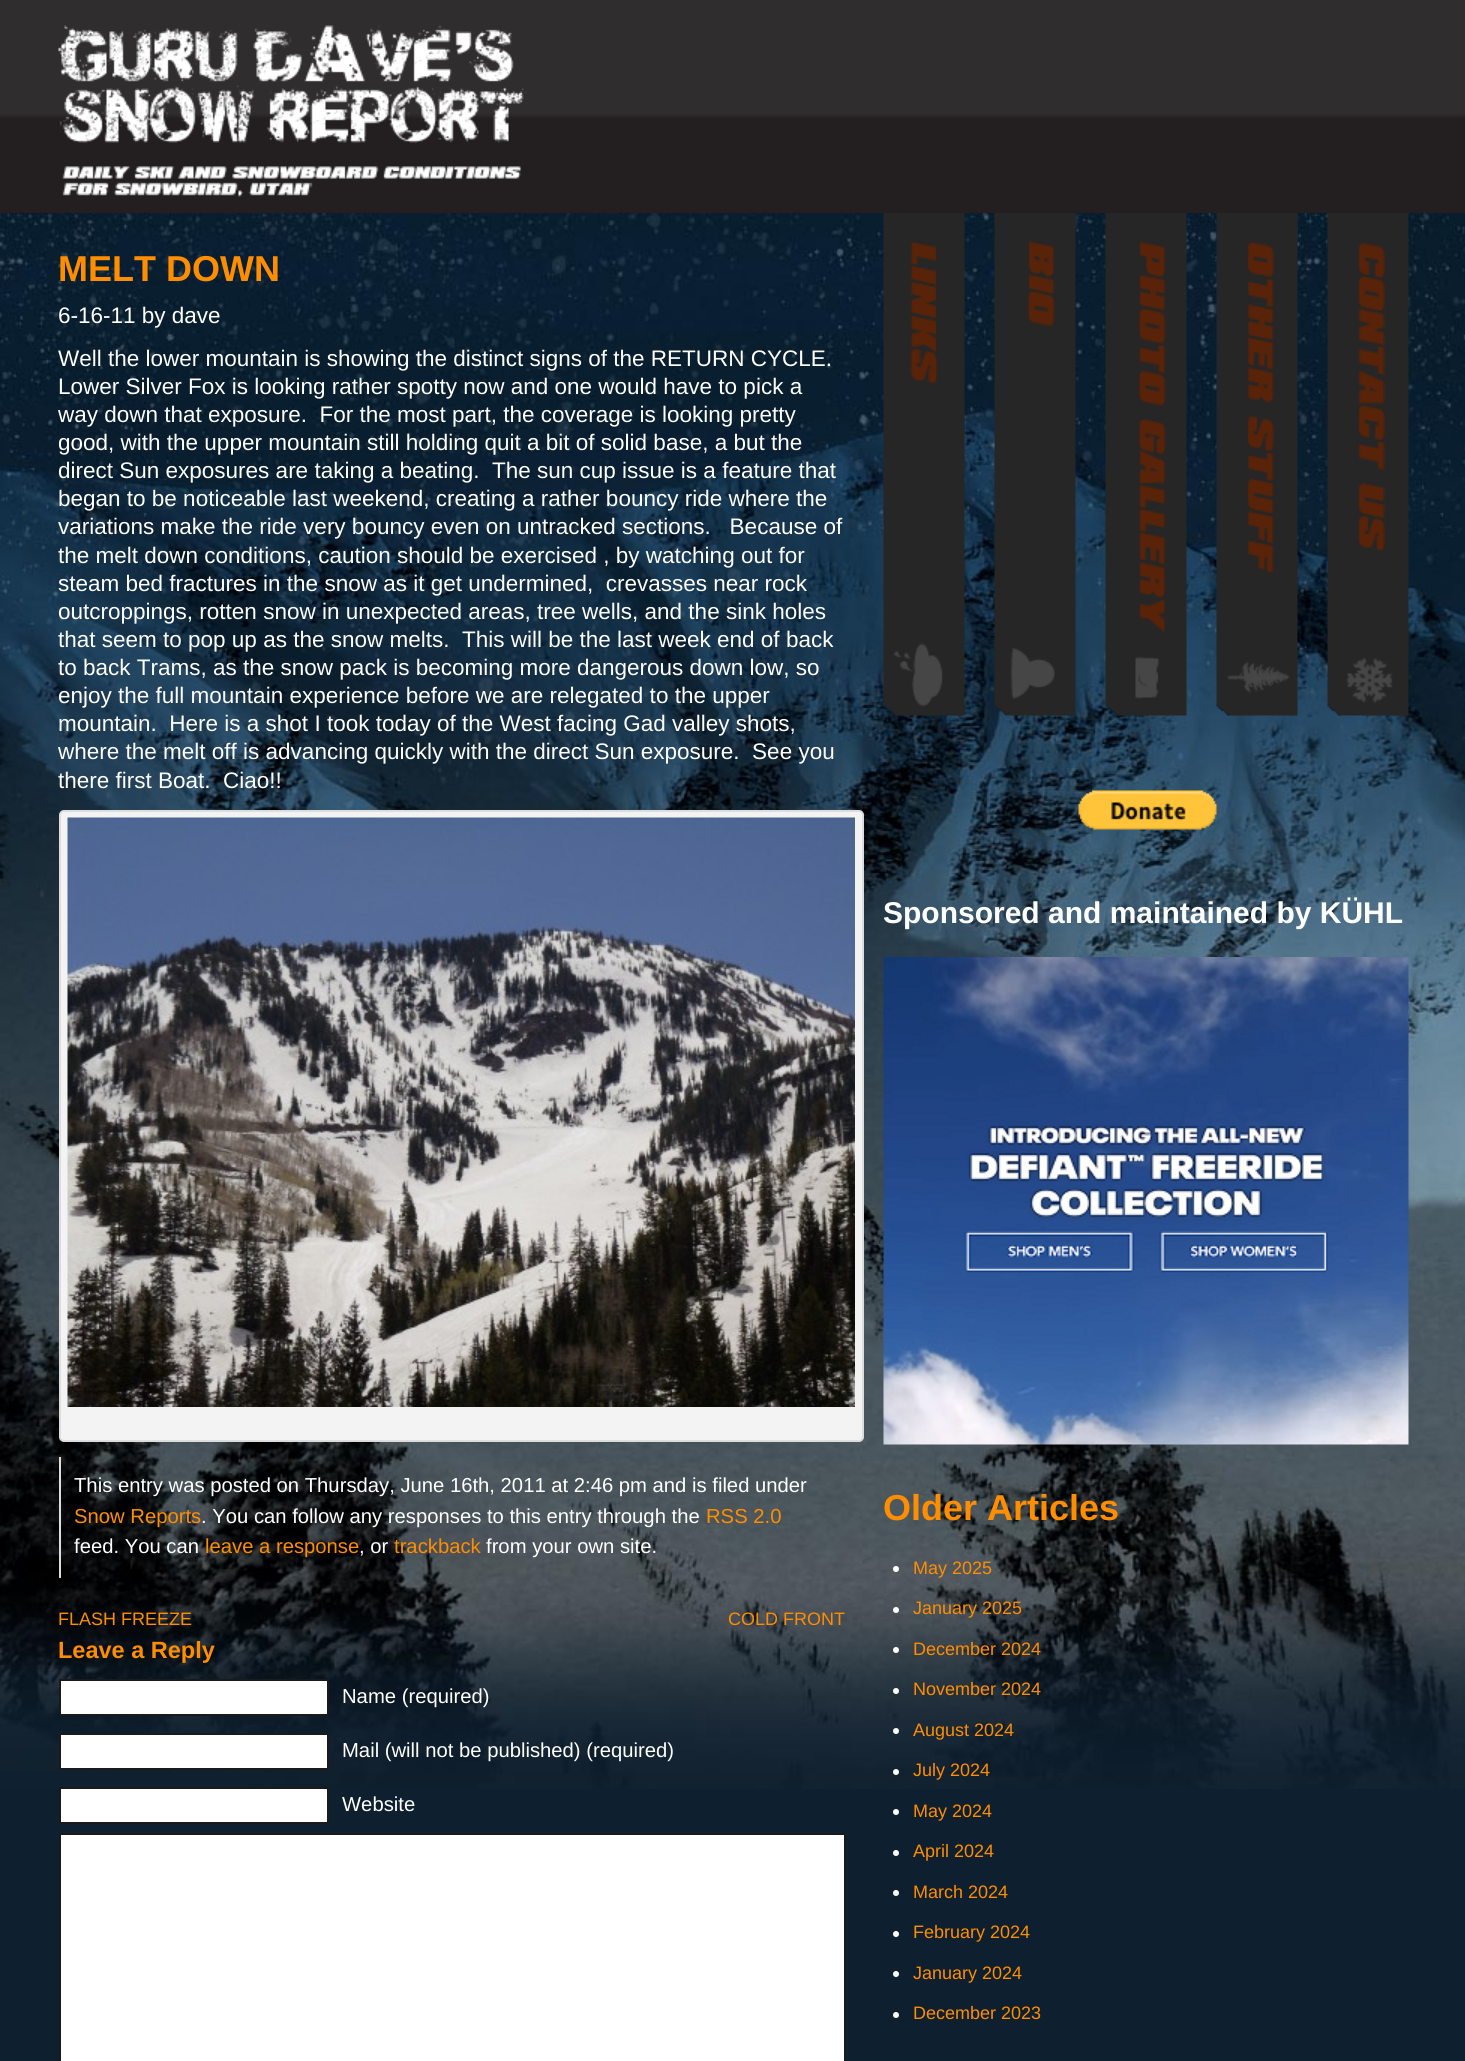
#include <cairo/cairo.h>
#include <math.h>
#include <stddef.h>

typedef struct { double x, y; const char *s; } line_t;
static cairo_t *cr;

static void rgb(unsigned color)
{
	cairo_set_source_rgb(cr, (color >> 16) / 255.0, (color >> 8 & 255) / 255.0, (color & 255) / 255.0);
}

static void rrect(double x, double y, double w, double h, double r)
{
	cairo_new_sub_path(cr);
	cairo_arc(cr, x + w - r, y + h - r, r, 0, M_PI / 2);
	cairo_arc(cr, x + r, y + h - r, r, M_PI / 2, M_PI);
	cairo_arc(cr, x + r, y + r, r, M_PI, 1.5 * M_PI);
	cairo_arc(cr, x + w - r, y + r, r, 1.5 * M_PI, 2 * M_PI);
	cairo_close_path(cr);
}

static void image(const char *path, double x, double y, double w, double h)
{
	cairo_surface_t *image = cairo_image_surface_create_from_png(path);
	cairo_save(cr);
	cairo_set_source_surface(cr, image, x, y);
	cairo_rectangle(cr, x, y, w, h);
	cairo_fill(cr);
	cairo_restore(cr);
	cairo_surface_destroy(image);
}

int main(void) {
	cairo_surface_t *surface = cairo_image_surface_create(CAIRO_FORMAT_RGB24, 1465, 2061);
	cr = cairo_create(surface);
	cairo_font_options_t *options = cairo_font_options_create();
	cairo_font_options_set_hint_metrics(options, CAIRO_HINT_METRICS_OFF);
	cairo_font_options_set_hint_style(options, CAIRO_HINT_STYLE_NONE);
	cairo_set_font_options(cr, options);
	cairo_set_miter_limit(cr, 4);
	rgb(0xffffff);
	cairo_paint(cr);
	image("img/1.png", 0, 0, 1465, 213);
	image("img/2.png", 58, 25, 469, 172);
	rgb(0x0e1f2f);
	cairo_rectangle(cr, 0, 1789, 1465, 272);
	cairo_fill(cr);
	image("img/3.png", 0, 213, 1465, 1576);
	rgb(0xf3f3f3);
	rrect(60, 811, 803, 630, 4);
	cairo_fill_preserve(cr);
	rgb(0xdddddd);
	cairo_stroke(cr);
	image("img/4.png", 67, 817, 788, 590);
	cairo_rectangle(cr, 59, 1457, 2, 121);
	cairo_fill(cr);
	rgb(0xffffff);
	cairo_rectangle(cr, 60, 1680, 268, 35);
	cairo_fill_preserve(cr);
	rgb(0x1a1a1a);
	cairo_stroke(cr);
	rgb(0xffffff);
	cairo_rectangle(cr, 60, 1734, 268, 35);
	cairo_fill_preserve(cr);
	rgb(0x1a1a1a);
	cairo_stroke(cr);
	rgb(0xffffff);
	cairo_rectangle(cr, 60, 1788, 268, 35);
	cairo_fill_preserve(cr);
	rgb(0x1a1a1a);
	cairo_stroke(cr);
	rgb(0xffffff);
	cairo_rectangle(cr, 60, 1834, 785, 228);
	cairo_fill_preserve(cr);
	rgb(0x1a1a1a);
	cairo_stroke(cr);
	image("img/5.png", 883, 213, 82, 503);
	image("img/6.png", 994, 213, 82, 503);
	image("img/7.png", 1105, 213, 82, 503);
	image("img/8.png", 1216, 213, 82, 503);
	image("img/9.png", 1327, 213, 82, 503);
	image("img/10.png", 1078, 790, 139, 40);
	image("img/11.png", 883, 957, 526, 488);
	rgb(0xffffff);
	cairo_arc(cr, 896, 1569, 3, 0, 2 * M_PI);
	cairo_fill(cr);
	cairo_arc(cr, 896, 1610, 3, 0, 2 * M_PI);
	cairo_fill(cr);
	cairo_arc(cr, 896, 1650, 3, 0, 2 * M_PI);
	cairo_fill(cr);
	cairo_arc(cr, 896, 1691, 3, 0, 2 * M_PI);
	cairo_fill(cr);
	cairo_arc(cr, 896, 1731, 3, 0, 2 * M_PI);
	cairo_fill(cr);
	cairo_arc(cr, 896, 1772, 3, 0, 2 * M_PI);
	cairo_fill(cr);
	cairo_arc(cr, 896, 1812, 3, 0, 2 * M_PI);
	cairo_fill(cr);
	cairo_arc(cr, 896, 1853, 3, 0, 2 * M_PI);
	cairo_fill(cr);
	cairo_arc(cr, 896, 1893, 3, 0, 2 * M_PI);
	cairo_fill(cr);
	cairo_arc(cr, 896, 1934, 3, 0, 2 * M_PI);
	cairo_fill(cr);
	cairo_arc(cr, 896, 1974, 3, 0, 2 * M_PI);
	cairo_fill(cr);
	cairo_arc(cr, 896, 2015, 3, 0, 2 * M_PI);
	cairo_fill(cr);
	cairo_select_font_face(cr, "Liberation Sans", CAIRO_FONT_SLANT_NORMAL, CAIRO_FONT_WEIGHT_BOLD);
	cairo_set_font_size(cr, 36);
	rgb(0xff8d00);
	cairo_move_to(cr, 58, 281);
	cairo_show_text(cr, "MELT DOWN");
	cairo_select_font_face(cr, "Liberation Sans", CAIRO_FONT_SLANT_NORMAL, CAIRO_FONT_WEIGHT_NORMAL);
	cairo_set_font_size(cr, 22.5);
	rgb(0xffffff);
	{
		static const line_t items[] = {
			{58, 323, "6-16-11 by dave"},
			{58, 366, "Well the lower mountain is showing the distinct signs of the RETURN CYCLE."},
			{58, 394, "Lower Silver Fox is looking rather spotty now and one would have to pick a"},
			{58, 422, "way down that exposure.  For the most part, the coverage is looking pretty"},
			{58, 450, "good, with the upper mountain still holding quit a bit of solid base, a but the"},
			{58, 478, "direct Sun exposures are taking a beating.  The sun cup issue is a feature that"},
			{58, 506, "began to be noticeable last weekend, creating a rather bouncy ride where the"},
			{58, 534, "variations make the ride very bouncy even on untracked sections.   Because of"},
			{58, 563, "the melt down conditions, caution should be exercised , by watching out for"},
			{58, 591, "steam bed fractures in the snow as it get undermined,  crevasses near rock"},
			{58, 619, "outcroppings, rotten snow in unexpected areas, tree wells, and the sink holes"},
			{58, 647, "that seem to pop up as the snow melts.  This will be the last week end of back"},
			{58, 675, "to back Trams, as the snow pack is becoming more dangerous down low, so"},
			{58, 703, "enjoy the full mountain experience before we are relegated to the upper"},
			{58, 731, "mountain.  Here is a shot I took today of the West facing Gad valley shots,"},
			{58, 759, "where the melt off is advancing quickly with the direct Sun exposure.  See you"},
			{58, 788, "there first Boat.  Ciao!!"},
		};
		for (size_t i = 0; i < sizeof items / sizeof *items; i++) {
			cairo_move_to(cr, items[i].x, items[i].y);
			cairo_show_text(cr, items[i].s);
		}
	}
	cairo_set_font_size(cr, 20.25);
	cairo_move_to(cr, 74, 1492);
	cairo_show_text(cr, "This entry was posted on Thursday, June 16th, 2011 at 2:46 pm and is filed under");
	rgb(0xff8d00);
	cairo_move_to(cr, 74, 1523);
	cairo_show_text(cr, "Snow Reports");
	rgb(0xffffff);
	cairo_move_to(cr, 201, 1523);
	cairo_show_text(cr, ". You can follow any responses to this entry through the");
	rgb(0xff8d00);
	cairo_move_to(cr, 706, 1523);
	cairo_show_text(cr, "RSS 2.0");
	rgb(0xffffff);
	cairo_move_to(cr, 74, 1553);
	cairo_show_text(cr, "feed. You can");
	rgb(0xff8d00);
	cairo_move_to(cr, 205, 1553);
	cairo_show_text(cr, "leave a response");
	rgb(0xffffff);
	cairo_move_to(cr, 359, 1553);
	cairo_show_text(cr, ", or");
	rgb(0xff8d00);
	cairo_move_to(cr, 394, 1553);
	cairo_show_text(cr, "trackback");
	rgb(0xffffff);
	cairo_move_to(cr, 486, 1553);
	cairo_show_text(cr, "from your own site.");
	cairo_set_font_size(cr, 18);
	rgb(0xff8d00);
	cairo_move_to(cr, 58, 1625);
	cairo_show_text(cr, "FLASH FREEZE");
	cairo_move_to(cr, 728, 1625);
	cairo_show_text(cr, "COLD FRONT");
	cairo_select_font_face(cr, "Liberation Sans", CAIRO_FONT_SLANT_NORMAL, CAIRO_FONT_WEIGHT_BOLD);
	cairo_set_font_size(cr, 23.5);
	cairo_move_to(cr, 58, 1658);
	cairo_show_text(cr, "Leave a Reply");
	cairo_select_font_face(cr, "Liberation Sans", CAIRO_FONT_SLANT_NORMAL, CAIRO_FONT_WEIGHT_NORMAL);
	cairo_set_font_size(cr, 20.25);
	rgb(0xffffff);
	{
		static const line_t items[] = {
			{342, 1703, "Name (required)"},
			{342, 1757, "Mail (will not be published) (required)"},
			{342, 1811, "Website"},
		};
		for (size_t i = 0; i < sizeof items / sizeof *items; i++) {
			cairo_move_to(cr, items[i].x, items[i].y);
			cairo_show_text(cr, items[i].s);
		}
	}
	cairo_select_font_face(cr, "Liberation Sans", CAIRO_FONT_SLANT_NORMAL, CAIRO_FONT_WEIGHT_BOLD);
	cairo_set_font_size(cr, 30);
	cairo_move_to(cr, 883, 923);
	cairo_show_text(cr, "Sponsored and maintained by KÜHL");
	cairo_set_font_size(cr, 36);
	rgb(0xff8d00);
	cairo_move_to(cr, 883, 1520);
	cairo_show_text(cr, "Older Articles");
	cairo_select_font_face(cr, "Liberation Sans", CAIRO_FONT_SLANT_NORMAL, CAIRO_FONT_WEIGHT_NORMAL);
	cairo_set_font_size(cr, 18);
	{
		static const line_t items[] = {
			{913, 1574, "May 2025"},
			{913, 1614, "January 2025"},
			{913, 1655, "December 2024"},
			{913, 1695, "November 2024"},
			{913, 1736, "August 2024"},
			{913, 1776, "July 2024"},
			{913, 1817, "May 2024"},
			{913, 1857, "April 2024"},
			{913, 1898, "March 2024"},
			{913, 1938, "February 2024"},
			{913, 1979, "January 2024"},
			{913, 2019, "December 2023"},
		};
		for (size_t i = 0; i < sizeof items / sizeof *items; i++) {
			cairo_move_to(cr, items[i].x, items[i].y);
			cairo_show_text(cr, items[i].s);
		}
	}
	cairo_surface_write_to_png(surface, "page.png");
	cairo_font_options_destroy(options);
	cairo_destroy(cr);
	cairo_surface_destroy(surface);
	return 0;
}
